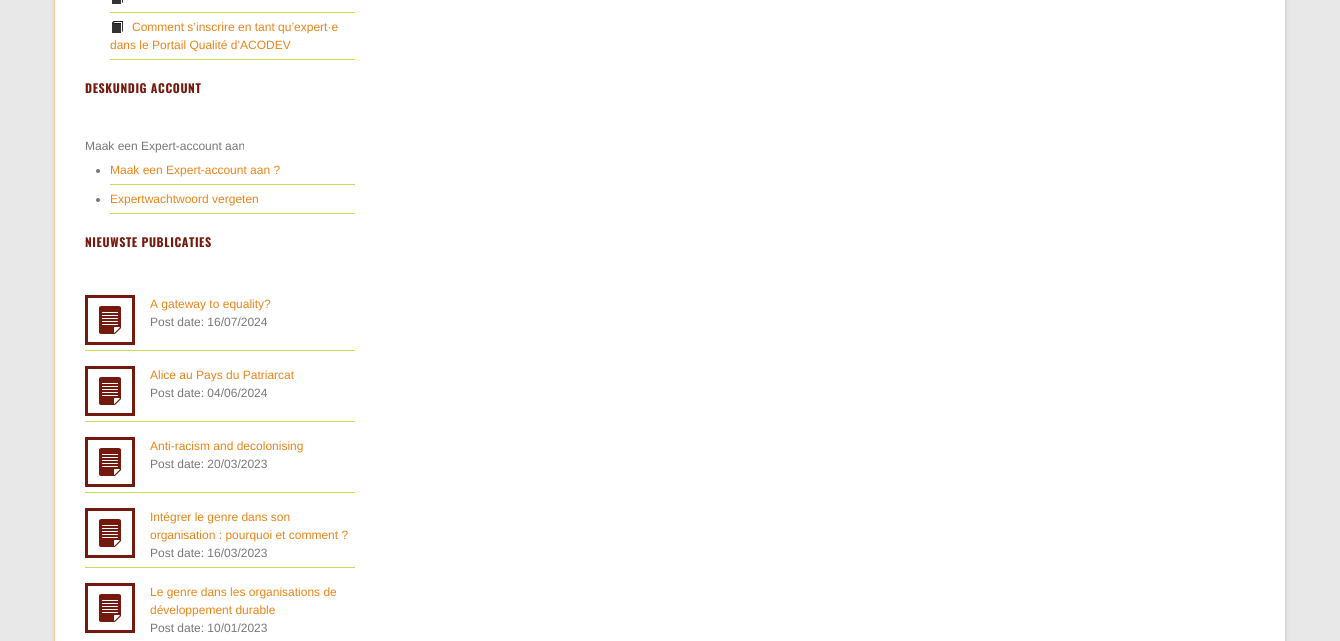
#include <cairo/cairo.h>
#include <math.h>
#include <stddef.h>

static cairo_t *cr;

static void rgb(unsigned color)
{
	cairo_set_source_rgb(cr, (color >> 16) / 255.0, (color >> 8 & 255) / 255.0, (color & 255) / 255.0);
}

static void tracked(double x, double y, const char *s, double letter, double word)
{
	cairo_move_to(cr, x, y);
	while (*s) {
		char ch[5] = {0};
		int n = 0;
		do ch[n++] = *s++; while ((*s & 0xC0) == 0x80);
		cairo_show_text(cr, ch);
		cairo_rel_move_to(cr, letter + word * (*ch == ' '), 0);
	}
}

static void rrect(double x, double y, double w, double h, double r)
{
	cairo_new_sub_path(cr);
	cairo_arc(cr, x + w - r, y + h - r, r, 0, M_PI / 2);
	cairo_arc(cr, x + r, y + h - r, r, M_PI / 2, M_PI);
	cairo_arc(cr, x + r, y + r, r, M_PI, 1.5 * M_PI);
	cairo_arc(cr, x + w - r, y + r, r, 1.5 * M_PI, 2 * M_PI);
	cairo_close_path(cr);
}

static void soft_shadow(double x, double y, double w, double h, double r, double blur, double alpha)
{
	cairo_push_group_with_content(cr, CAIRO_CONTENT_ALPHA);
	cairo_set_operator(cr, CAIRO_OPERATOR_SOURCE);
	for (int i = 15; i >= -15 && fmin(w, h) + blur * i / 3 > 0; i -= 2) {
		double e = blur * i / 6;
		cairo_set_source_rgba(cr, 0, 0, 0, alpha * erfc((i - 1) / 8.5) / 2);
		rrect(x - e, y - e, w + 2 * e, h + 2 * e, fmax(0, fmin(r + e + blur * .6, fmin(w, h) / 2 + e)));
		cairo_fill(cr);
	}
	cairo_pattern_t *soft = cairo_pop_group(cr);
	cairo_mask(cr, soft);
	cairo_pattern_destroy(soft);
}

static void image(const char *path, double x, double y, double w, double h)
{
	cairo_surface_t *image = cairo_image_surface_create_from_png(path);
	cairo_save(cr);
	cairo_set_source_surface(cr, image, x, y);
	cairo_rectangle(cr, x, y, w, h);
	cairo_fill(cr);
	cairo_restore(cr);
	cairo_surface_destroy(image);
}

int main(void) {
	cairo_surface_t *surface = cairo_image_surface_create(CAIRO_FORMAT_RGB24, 1340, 641);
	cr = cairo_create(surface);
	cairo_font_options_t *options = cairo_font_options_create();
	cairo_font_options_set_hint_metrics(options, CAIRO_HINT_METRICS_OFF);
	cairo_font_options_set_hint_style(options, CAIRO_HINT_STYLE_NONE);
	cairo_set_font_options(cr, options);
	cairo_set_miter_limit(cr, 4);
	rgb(0xe8e8e8);
	cairo_paint(cr);
	rgb(0x000000);
	soft_shadow(54, -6, 1232, 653, 0, 2, 0.1);
	rgb(0xffffff);
	cairo_rectangle(cr, 54.5, -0.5, 1231, 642);
	cairo_fill_preserve(cr);
	rgb(0xf8cc99);
	cairo_set_line_width(cr, 1);
	cairo_stroke(cr);
	rgb(0xc8dc4e);
	cairo_rectangle(cr, 110, 12, 245, 1);
	cairo_fill(cr);
	image("img/1.png", 112, 0, 11, 4);
	cairo_rectangle(cr, 110, 59, 245, 1);
	cairo_fill(cr);
	image("img/2.png", 112, 21, 11, 12);
	cairo_rectangle(cr, 110, 184, 245, 1);
	cairo_fill(cr);
	rgb(0x777777);
	cairo_arc(cr, 98, 171, 2, 0, 2 * M_PI);
	cairo_fill(cr);
	rgb(0xc8dc4e);
	cairo_rectangle(cr, 110, 213, 245, 1);
	cairo_fill(cr);
	rgb(0x777777);
	cairo_arc(cr, 98, 200, 2, 0, 2 * M_PI);
	cairo_fill(cr);
	rgb(0xc8dc4e);
	cairo_rectangle(cr, 85, 350, 270, 1);
	cairo_fill(cr);
	image("img/3.png", 85, 295, 50, 50);
	cairo_rectangle(cr, 85, 421, 270, 1);
	cairo_fill(cr);
	image("img/3.png", 85, 366, 50, 50);
	cairo_rectangle(cr, 85, 492, 270, 1);
	cairo_fill(cr);
	image("img/3.png", 85, 437, 50, 50);
	cairo_rectangle(cr, 85, 567, 270, 1);
	cairo_fill(cr);
	image("img/3.png", 85, 508, 50, 50);
	image("img/3.png", 85, 583, 50, 50);
	cairo_select_font_face(cr, "Liberation Sans", CAIRO_FONT_SLANT_NORMAL, CAIRO_FONT_WEIGHT_NORMAL);
	cairo_set_font_size(cr, 12);
	rgb(0xea8418);
	cairo_move_to(cr, 132, 31);
	cairo_show_text(cr, "Comment s’inscrire en tant qu’expert·e");
	cairo_move_to(cr, 110, 49);
	cairo_show_text(cr, "dans le Portail Qualité d’ACODEV");
	cairo_select_font_face(cr, "Oswald", CAIRO_FONT_SLANT_NORMAL, CAIRO_FONT_WEIGHT_BOLD);
	rgb(0x74190d);
	tracked(85, 93, "DESKUNDIG ACCOUNT", 0.6, 0);
	cairo_select_font_face(cr, "Liberation Sans", CAIRO_FONT_SLANT_NORMAL, CAIRO_FONT_WEIGHT_NORMAL);
	rgb(0x777777);
	cairo_move_to(cr, 85, 150);
	cairo_show_text(cr, "Maak een Expert-account aan");
	rgb(0xea8418);
	cairo_move_to(cr, 110, 174);
	cairo_show_text(cr, "Maak een Expert-account aan ?");
	cairo_move_to(cr, 110, 203);
	cairo_show_text(cr, "Expertwachtwoord vergeten");
	cairo_select_font_face(cr, "Oswald", CAIRO_FONT_SLANT_NORMAL, CAIRO_FONT_WEIGHT_BOLD);
	rgb(0x74190d);
	tracked(85, 247, "NIEUWSTE PUBLICATIES", 0.6, 0);
	cairo_select_font_face(cr, "Liberation Sans", CAIRO_FONT_SLANT_NORMAL, CAIRO_FONT_WEIGHT_NORMAL);
	rgb(0xea8418);
	cairo_move_to(cr, 150, 308);
	cairo_show_text(cr, "A gateway to equality?");
	rgb(0x777777);
	cairo_move_to(cr, 150, 326);
	cairo_show_text(cr, "Post date: 16/07/2024");
	rgb(0xea8418);
	cairo_move_to(cr, 150, 379);
	cairo_show_text(cr, "Alice au Pays du Patriarcat");
	rgb(0x777777);
	cairo_move_to(cr, 150, 397);
	cairo_show_text(cr, "Post date: 04/06/2024");
	rgb(0xea8418);
	cairo_move_to(cr, 150, 450);
	cairo_show_text(cr, "Anti-racism and decolonising");
	rgb(0x777777);
	cairo_move_to(cr, 150, 468);
	cairo_show_text(cr, "Post date: 20/03/2023");
	rgb(0xea8418);
	cairo_move_to(cr, 150, 521);
	cairo_show_text(cr, "Intégrer le genre dans son");
	cairo_move_to(cr, 150, 539);
	cairo_show_text(cr, "organisation : pourquoi et comment ?");
	rgb(0x777777);
	cairo_move_to(cr, 150, 557);
	cairo_show_text(cr, "Post date: 16/03/2023");
	rgb(0xea8418);
	cairo_move_to(cr, 150, 596);
	cairo_show_text(cr, "Le genre dans les organisations de");
	cairo_move_to(cr, 150, 614);
	cairo_show_text(cr, "développement durable");
	rgb(0x777777);
	cairo_move_to(cr, 150, 632);
	cairo_show_text(cr, "Post date: 10/01/2023");
	cairo_surface_write_to_png(surface, "page.png");
	cairo_font_options_destroy(options);
	cairo_destroy(cr);
	cairo_surface_destroy(surface);
	return 0;
}
